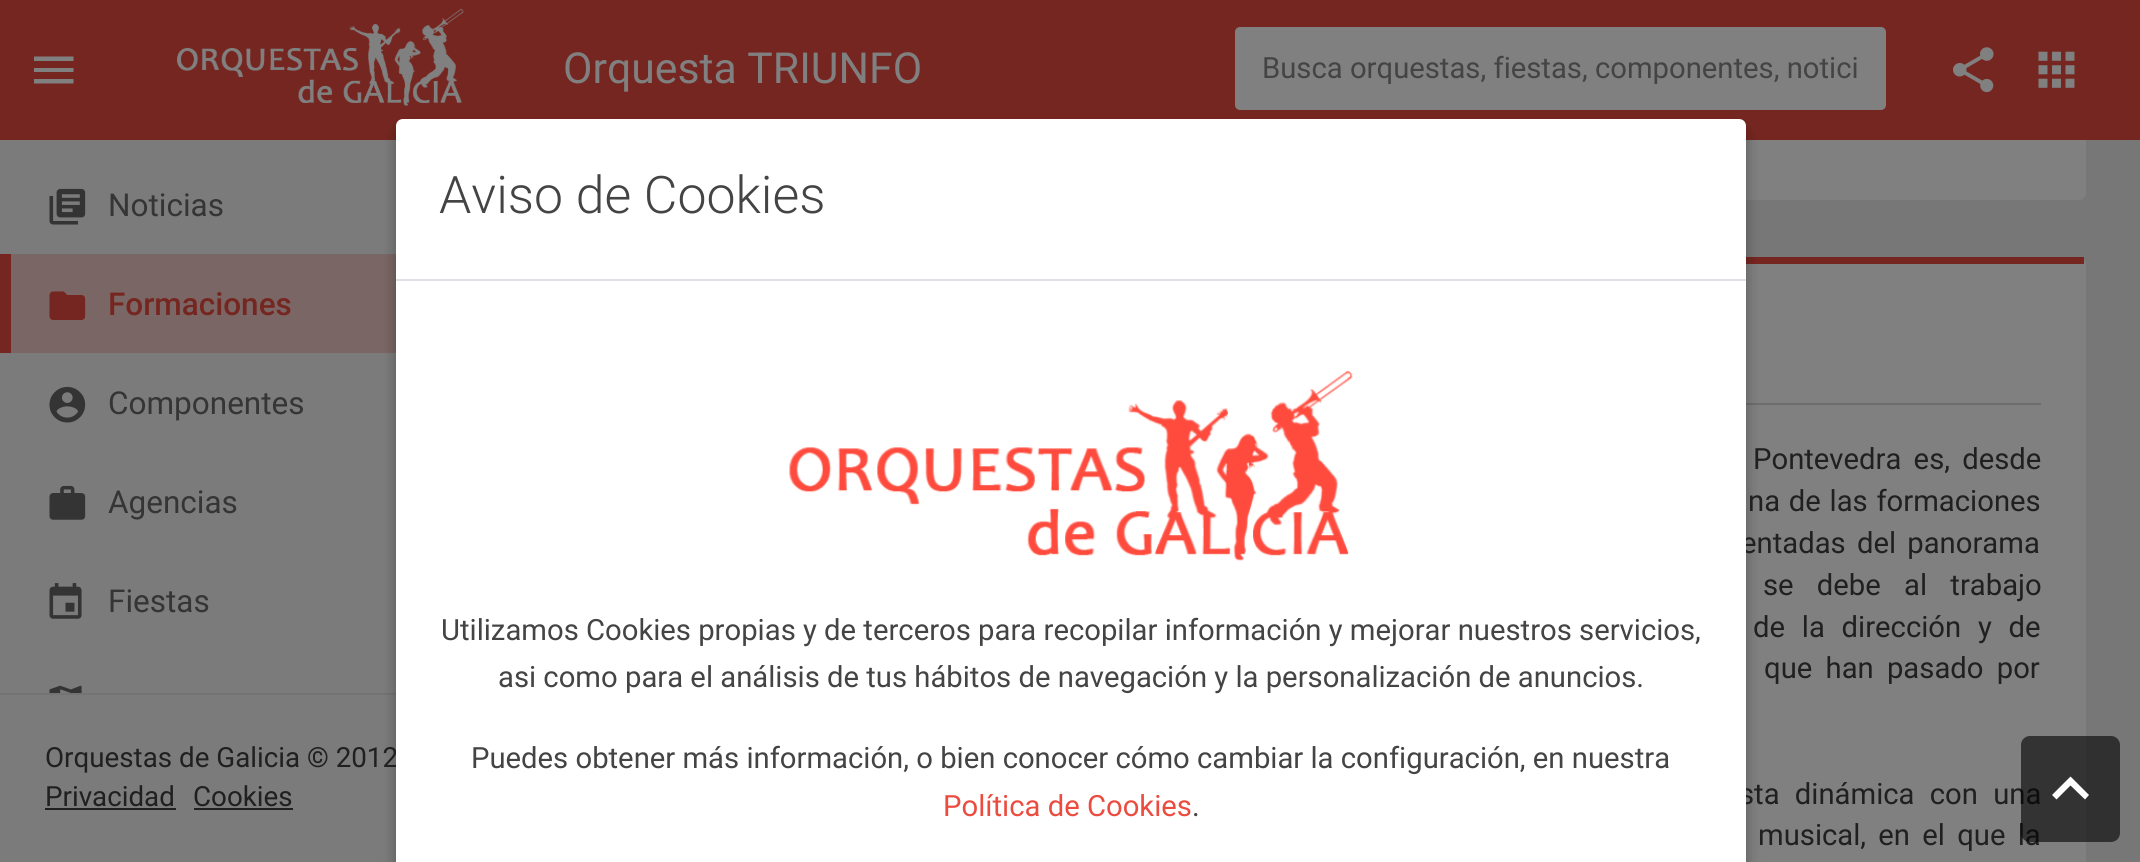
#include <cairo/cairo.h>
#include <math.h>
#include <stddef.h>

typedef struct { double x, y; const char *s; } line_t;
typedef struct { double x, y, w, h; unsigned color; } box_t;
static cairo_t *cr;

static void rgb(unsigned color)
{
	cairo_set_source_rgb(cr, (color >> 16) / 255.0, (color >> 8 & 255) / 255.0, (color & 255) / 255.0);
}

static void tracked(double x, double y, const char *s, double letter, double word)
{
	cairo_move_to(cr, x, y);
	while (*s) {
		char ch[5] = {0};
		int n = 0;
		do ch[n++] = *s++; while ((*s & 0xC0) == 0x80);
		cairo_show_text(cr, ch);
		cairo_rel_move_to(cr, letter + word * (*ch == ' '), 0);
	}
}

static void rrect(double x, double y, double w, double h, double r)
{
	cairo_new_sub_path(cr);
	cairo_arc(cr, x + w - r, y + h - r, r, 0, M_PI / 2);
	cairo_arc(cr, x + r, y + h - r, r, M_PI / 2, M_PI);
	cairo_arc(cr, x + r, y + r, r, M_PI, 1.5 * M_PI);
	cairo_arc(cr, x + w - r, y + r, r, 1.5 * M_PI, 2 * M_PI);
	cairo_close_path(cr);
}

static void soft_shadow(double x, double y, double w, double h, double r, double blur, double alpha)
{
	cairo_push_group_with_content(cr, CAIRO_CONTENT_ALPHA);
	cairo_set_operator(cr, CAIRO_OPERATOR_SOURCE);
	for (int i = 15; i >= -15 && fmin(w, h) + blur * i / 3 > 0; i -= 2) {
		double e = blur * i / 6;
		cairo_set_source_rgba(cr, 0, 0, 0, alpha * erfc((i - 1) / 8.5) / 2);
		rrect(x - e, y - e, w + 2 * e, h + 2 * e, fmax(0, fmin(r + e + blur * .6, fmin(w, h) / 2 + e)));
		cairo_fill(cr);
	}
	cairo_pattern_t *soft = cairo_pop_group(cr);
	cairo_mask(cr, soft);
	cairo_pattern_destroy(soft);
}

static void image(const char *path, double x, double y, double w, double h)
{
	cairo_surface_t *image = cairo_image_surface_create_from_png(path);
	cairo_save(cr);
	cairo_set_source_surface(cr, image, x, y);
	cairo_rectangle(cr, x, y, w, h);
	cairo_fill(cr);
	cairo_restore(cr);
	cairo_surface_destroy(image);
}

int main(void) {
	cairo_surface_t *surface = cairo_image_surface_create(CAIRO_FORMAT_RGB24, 2140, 862);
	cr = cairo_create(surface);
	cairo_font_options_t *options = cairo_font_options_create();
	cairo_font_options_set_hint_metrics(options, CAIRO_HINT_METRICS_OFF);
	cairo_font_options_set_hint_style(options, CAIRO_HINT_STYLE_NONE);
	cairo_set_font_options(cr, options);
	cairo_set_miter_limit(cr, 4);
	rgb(0x777777);
	cairo_paint(cr);
	rgb(0x808080);
	rrect(1386, -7, 700, 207, 7);
	cairo_fill(cr);
	rgb(0x762620);
	cairo_rectangle(cr, 0, 0, 2140, 140);
	cairo_fill(cr);
	rgb(0x808080);
	cairo_new_path(cr);
	cairo_move_to(cr, 34, 83.5);
	cairo_line_to(cr, 34, 79);
	cairo_line_to(cr, 73.5, 79);
	cairo_line_to(cr, 73.5, 83.5);
	cairo_close_path(cr);
	cairo_move_to(cr, 34, 72);
	cairo_line_to(cr, 34, 68);
	cairo_line_to(cr, 73.5, 68);
	cairo_line_to(cr, 73.5, 72);
	cairo_close_path(cr);
	cairo_move_to(cr, 34, 56.5);
	cairo_line_to(cr, 73.5, 56.5);
	cairo_line_to(cr, 73.5, 61);
	cairo_line_to(cr, 34, 61);
	cairo_close_path(cr);
	cairo_fill(cr);
	image("img/1.png", 177, 8, 287, 98);
	rrect(1235, 27, 651, 83, 5);
	cairo_fill(cr);
	image("img/2.png", 1953, 47, 41, 46);
	image("img/3.png", 2038, 51, 37, 37);
	rgb(0x7b7b7b);
	cairo_rectangle(cr, 0, 140, 396, 553);
	cairo_fill(cr);
	image("img/4.png", 49, 188, 37, 37);
	rgb(0x7a6664);
	cairo_rectangle(cr, 11, 254, 385, 99);
	cairo_fill(cr);
	rgb(0x762620);
	cairo_rectangle(cr, 0, 254, 11, 99);
	cairo_fill(cr);
	image("img/5.png", 49, 291, 37, 29);
	image("img/6.png", 49, 386, 37, 37);
	image("img/7.png", 49, 485, 37, 35);
	image("img/8.png", 49, 583, 33, 36);
	image("img/9.png", 49, 685, 33, 8);
	{
		static const box_t items[] = {
			{0, 695, 396, 167, 0x7b7b7b},
			{0, 693, 396, 2, 0x737373},
			{45, 808, 131, 2, 0x202020},
			{194, 808, 99, 2, 0x202020},
		};
		for (size_t i = 0; i < sizeof items / sizeof *items; i++) {
			rgb(items[i].color);
			cairo_rectangle(cr, items[i].x, items[i].y, items[i].w, items[i].h);
			cairo_fill(cr);
		}
	}
	rgb(0x808080);
	rrect(1386, 257, 700, 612, 7);
	cairo_fill(cr);
	rgb(0x762620);
	cairo_rectangle(cr, 1746, 257, 338, 7);
	cairo_fill(cr);
	rgb(0x6d6d6d);
	cairo_rectangle(cr, 1746, 403, 295, 2);
	cairo_fill(cr);
	rgb(0x000000);
	soft_shadow(396, 128, 1350, 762, 7, 7, 0.3);
	cairo_select_font_face(cr, "Roboto", CAIRO_FONT_SLANT_NORMAL, CAIRO_FONT_WEIGHT_NORMAL);
	cairo_set_font_size(cr, 42.75);
	rgb(0x808080);
	cairo_move_to(cr, 563, 83);
	cairo_show_text(cr, "Orquesta TRIUNFO");
	cairo_set_font_size(cr, 29.25);
	rgb(0x444444);
	cairo_move_to(cr, 1262, 78);
	cairo_show_text(cr, "Busca orquestas, fiestas, componentes, notici");
	cairo_set_font_size(cr, 31.5);
	rgb(0x353535);
	cairo_move_to(cr, 108, 216);
	cairo_show_text(cr, "Noticias");
	cairo_select_font_face(cr, "Roboto Medium", CAIRO_FONT_SLANT_NORMAL, CAIRO_FONT_WEIGHT_NORMAL);
	rgb(0x762620);
	cairo_move_to(cr, 108, 315);
	cairo_show_text(cr, "Formaciones");
	cairo_select_font_face(cr, "Roboto", CAIRO_FONT_SLANT_NORMAL, CAIRO_FONT_WEIGHT_NORMAL);
	rgb(0x353535);
	{
		static const line_t items[] = {
			{108, 414, "Componentes"},
			{108, 513, "Agencias"},
			{108, 612, "Fiestas"},
		};
		for (size_t i = 0; i < sizeof items / sizeof *items; i++) {
			cairo_move_to(cr, items[i].x, items[i].y);
			cairo_show_text(cr, items[i].s);
		}
	}
	cairo_set_font_size(cr, 27.75);
	rgb(0x202020);
	{
		static const line_t items[] = {
			{45, 767, "Orquestas de Galicia © 2012"},
			{45, 806, "Privacidad"},
			{193, 806, "Cookies"},
		};
		for (size_t i = 0; i < sizeof items / sizeof *items; i++) {
			cairo_move_to(cr, items[i].x, items[i].y);
			cairo_show_text(cr, items[i].s);
		}
	}
	cairo_set_font_size(cr, 29.25);
	tracked(1753, 469, "Pontevedra es, desde", 0, 5);
	tracked(1748, 511, "na de las formaciones", 0, 1.5);
	tracked(1741, 553, "entadas del panorama", 0, 4);
	tracked(1763, 595, "se debe al trabajo", 0, 16);
	tracked(1753, 637, "de la dirección y de", 0, 9.5);
	tracked(1764, 678, "que han pasado por", 0, 6);
	tracked(1739, 804, "sta dinámica con una", 0, 8);
	tracked(1758, 845, "musical, en el que la", 0, 5);
	rgb(0xffffff);
	cairo_new_path(cr);
	cairo_move_to(cr, 403, 119);
	cairo_line_to(cr, 1739, 119);
	cairo_curve_to(cr, 1743, 119, 1746, 122, 1746, 126);
	cairo_line_to(cr, 1746, 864);
	cairo_line_to(cr, 396, 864);
	cairo_line_to(cr, 396, 126);
	cairo_curve_to(cr, 396, 122, 399, 119, 403, 119);
	cairo_close_path(cr);
	cairo_fill(cr);
	rgb(0xdee2e6);
	cairo_rectangle(cr, 396, 279, 1350, 2);
	cairo_fill(cr);
	cairo_select_font_face(cr, "Roboto Light", CAIRO_FONT_SLANT_NORMAL, CAIRO_FONT_WEIGHT_NORMAL);
	cairo_set_font_size(cr, 51.75);
	rgb(0x444444);
	cairo_move_to(cr, 439, 213);
	cairo_show_text(cr, "Aviso de Cookies");
	image("img/10.png", 789, 371, 564, 190);
	cairo_select_font_face(cr, "Roboto", CAIRO_FONT_SLANT_NORMAL, CAIRO_FONT_WEIGHT_NORMAL);
	cairo_set_font_size(cr, 29.25);
	{
		static const line_t items[] = {
			{441, 640, "Utilizamos Cookies propias y de terceros para recopilar información y mejorar nuestros servicios,"},
			{498, 687, "asi como para el análisis de tus hábitos de navegación y la personalización de anuncios."},
			{471, 768, "Puedes obtener más información, o bien conocer cómo cambiar la configuración, en nuestra"},
		};
		for (size_t i = 0; i < sizeof items / sizeof *items; i++) {
			cairo_move_to(cr, items[i].x, items[i].y);
			cairo_show_text(cr, items[i].s);
		}
	}
	rgb(0xec4c40);
	cairo_move_to(cr, 943, 816);
	cairo_show_text(cr, "Política de Cookies");
	rgb(0x444444);
	cairo_move_to(cr, 1192, 816);
	cairo_show_text(cr, ".");
	cairo_set_source_rgba(cr, 0, 0, 0, 0.6);
	rrect(2021, 736, 99, 106, 9);
	cairo_fill(cr);
	rgb(0xffffff);
	cairo_new_path(cr);
	cairo_move_to(cr, 2070.5, 776.5);
	cairo_line_to(cr, 2089, 795);
	cairo_line_to(cr, 2085, 799.5);
	cairo_line_to(cr, 2070.5, 785.5);
	cairo_line_to(cr, 2056.5, 799.5);
	cairo_line_to(cr, 2052, 795);
	cairo_close_path(cr);
	cairo_fill(cr);
	cairo_surface_write_to_png(surface, "page.png");
	cairo_font_options_destroy(options);
	cairo_destroy(cr);
	cairo_surface_destroy(surface);
	return 0;
}
